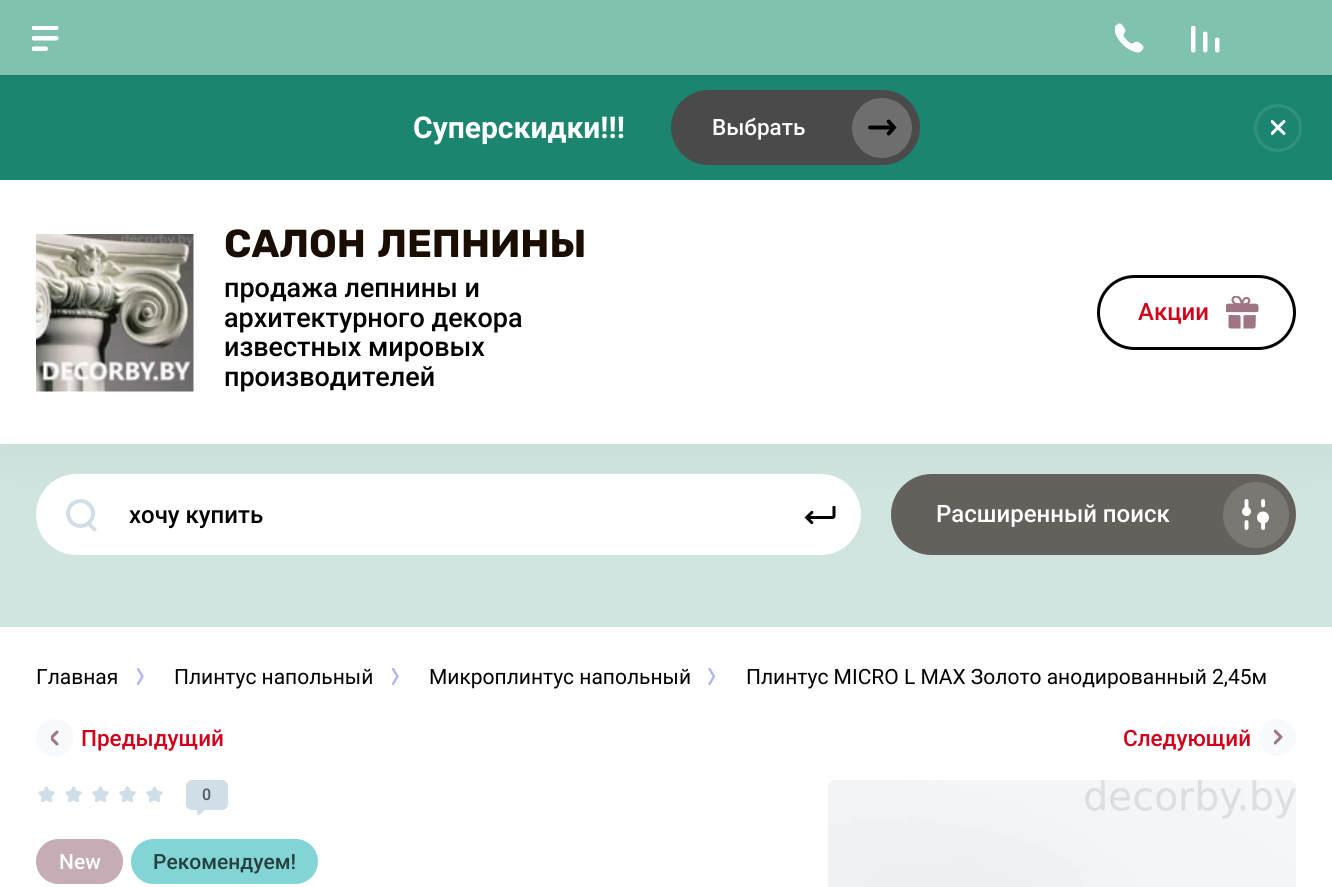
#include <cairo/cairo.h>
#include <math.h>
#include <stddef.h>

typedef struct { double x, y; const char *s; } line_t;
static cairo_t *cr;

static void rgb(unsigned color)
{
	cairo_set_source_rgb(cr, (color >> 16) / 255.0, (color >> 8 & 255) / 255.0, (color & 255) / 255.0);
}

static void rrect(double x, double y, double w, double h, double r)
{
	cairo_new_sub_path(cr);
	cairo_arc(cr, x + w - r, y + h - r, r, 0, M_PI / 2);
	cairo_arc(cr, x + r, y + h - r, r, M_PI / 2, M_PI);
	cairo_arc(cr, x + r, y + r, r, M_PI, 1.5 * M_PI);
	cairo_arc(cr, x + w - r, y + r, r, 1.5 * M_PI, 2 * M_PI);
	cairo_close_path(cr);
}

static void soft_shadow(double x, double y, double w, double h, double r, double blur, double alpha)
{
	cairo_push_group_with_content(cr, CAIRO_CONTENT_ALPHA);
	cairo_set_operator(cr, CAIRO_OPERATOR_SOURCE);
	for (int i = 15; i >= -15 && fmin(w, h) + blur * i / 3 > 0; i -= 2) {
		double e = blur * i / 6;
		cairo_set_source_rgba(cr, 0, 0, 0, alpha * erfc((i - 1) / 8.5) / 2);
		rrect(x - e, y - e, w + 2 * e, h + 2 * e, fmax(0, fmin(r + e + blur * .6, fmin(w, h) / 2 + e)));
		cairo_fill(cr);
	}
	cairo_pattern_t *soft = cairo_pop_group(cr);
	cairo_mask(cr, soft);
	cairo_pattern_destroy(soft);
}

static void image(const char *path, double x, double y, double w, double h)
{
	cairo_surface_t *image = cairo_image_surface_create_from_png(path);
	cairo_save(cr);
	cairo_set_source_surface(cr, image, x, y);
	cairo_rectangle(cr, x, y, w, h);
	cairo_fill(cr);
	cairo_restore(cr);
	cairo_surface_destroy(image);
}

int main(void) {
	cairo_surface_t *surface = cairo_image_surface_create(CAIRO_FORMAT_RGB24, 1332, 887);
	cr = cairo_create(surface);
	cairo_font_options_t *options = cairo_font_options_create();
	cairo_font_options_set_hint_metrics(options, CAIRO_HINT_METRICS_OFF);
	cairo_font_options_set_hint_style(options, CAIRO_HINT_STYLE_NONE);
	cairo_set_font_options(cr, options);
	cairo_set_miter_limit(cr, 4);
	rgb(0xd0e4e0);
	cairo_paint(cr);
	rgb(0x1a7e6a);
	cairo_rectangle(cr, 0, 75, 1332, 2);
	cairo_fill(cr);
	rgb(0x81c1b0);
	cairo_rectangle(cr, 0, 0, 1332, 75);
	cairo_fill(cr);
	image("img/1.png", 32, 26, 27, 25);
	image("img/2.png", 1115, 23, 29, 30);
	image("img/3.png", 1191, 26, 29, 27);
	rgb(0x000000);
	soft_shadow(0, 182, 1332, 264, 0, 30, 0.05);
	rgb(0x1b8570);
	cairo_rectangle(cr, 0, 77, 1332, 103);
	cairo_fill(cr);
	rgb(0x4a4a4a);
	rrect(671, 90, 249, 75, 37.5);
	cairo_fill(cr);
	rgb(0x6e6e6e);
	cairo_arc(cr, 882, 128, 30, 0, 2 * M_PI);
	cairo_fill(cr);
	image("img/4.png", 868, 119, 29, 17);
	cairo_arc(cr, 1278, 128, 22.5, 0, 2 * M_PI);
	rgb(0x32917e);
	cairo_set_line_width(cr, 3);
	cairo_stroke(cr);
	image("img/5.png", 1271, 120, 15, 15);
	rgb(0xffffff);
	cairo_rectangle(cr, 0, 180, 1332, 264);
	cairo_fill(cr);
	image("img/6.png", 36, 234, 158, 158);
	rrect(1098.5, 276.5, 196, 72, 36);
	rgb(0x000000);
	cairo_stroke(cr);
	image("img/7.png", 1226, 296, 33, 33);
	rgb(0xffffff);
	rrect(37.5, 475.5, 822, 78, 39);
	cairo_fill_preserve(cr);
	cairo_stroke(cr);
	cairo_arc(cr, 80.5, 513.5, 12.5, 0, 2 * M_PI);
	rgb(0xd0dfe7);
	cairo_set_line_width(cr, 4);
	cairo_stroke(cr);
	cairo_new_path(cr);
	cairo_move_to(cr, 88.5, 523.5);
	cairo_line_to(cr, 94.5, 529.5);
	cairo_set_line_width(cr, 3.9);
	cairo_set_line_cap(cr, CAIRO_LINE_CAP_ROUND);
	cairo_stroke(cr);
	image("img/8.png", 804, 506, 32, 19);
	rgb(0x64605b);
	rrect(891, 474, 405, 81, 40.5);
	cairo_fill(cr);
	rgb(0x7b7874);
	cairo_arc(cr, 1256, 515, 33, 0, 2 * M_PI);
	cairo_fill(cr);
	image("img/9.png", 1242, 499, 27, 31);
	rgb(0xffffff);
	cairo_rectangle(cr, 0, 627, 1332, 260);
	cairo_fill(cr);
	image("img/10.png", 137, 668, 7, 18);
	image("img/10.png", 392, 668, 7, 18);
	image("img/11.png", 708, 668, 8, 18);
	rgb(0xf6fafc);
	cairo_new_path(cr);
	cairo_move_to(cr, 55, 756.5);
	cairo_curve_to(cr, 44.5, 756.5, 36, 748, 36, 737.5);
	cairo_curve_to(cr, 36, 727, 44.5, 719, 55, 719);
	cairo_curve_to(cr, 65, 719, 73.5, 727, 73.5, 737.5);
	cairo_curve_to(cr, 73.5, 748, 65, 756.5, 55, 756.5);
	cairo_close_path(cr);
	cairo_fill(cr);
	cairo_save(cr);
	cairo_rectangle(cr, 51, 729, 9, 17);
	cairo_clip(cr);
	cairo_new_path(cr);
	cairo_move_to(cr, 57, 732);
	cairo_line_to(cr, 51, 738);
	cairo_line_to(cr, 57, 744);
	rgb(0x9f7484);
	cairo_set_line_width(cr, 3);
	cairo_set_line_join(cr, CAIRO_LINE_JOIN_ROUND);
	cairo_stroke(cr);
	cairo_restore(cr);
	cairo_arc(cr, 1277.5, 737.5, 18.5, 0, 2 * M_PI);
	cairo_fill(cr);
	cairo_save(cr);
	cairo_rectangle(cr, 1274, 729, 9, 17);
	cairo_clip(cr);
	cairo_new_path(cr);
	cairo_move_to(cr, 1275, 743);
	cairo_line_to(cr, 1281, 737);
	cairo_line_to(cr, 1275, 731);
	rgb(0x9f7484);
	cairo_set_line_width(cr, 3);
	cairo_set_line_join(cr, CAIRO_LINE_JOIN_ROUND);
	cairo_stroke(cr);
	cairo_restore(cr);
	image("img/12.png", 38, 786, 125, 17);
	image("img/13.png", 186, 780, 42, 36);
	rgb(0xc5acb5);
	rrect(36, 839, 87, 45, 22.5);
	cairo_fill(cr);
	rgb(0x83d4d4);
	rrect(131, 839, 187, 45, 22.5);
	cairo_fill(cr);
	image("img/14.png", 828, 780, 468, 107);
	cairo_select_font_face(cr, "Roboto", CAIRO_FONT_SLANT_NORMAL, CAIRO_FONT_WEIGHT_BOLD);
	cairo_set_font_size(cr, 30);
	rgb(0xffffff);
	cairo_move_to(cr, 413, 138);
	cairo_show_text(cr, "Суперскидки!!!");
	cairo_select_font_face(cr, "Roboto Medium", CAIRO_FONT_SLANT_NORMAL, CAIRO_FONT_WEIGHT_NORMAL);
	cairo_set_font_size(cr, 22.5);
	cairo_move_to(cr, 712, 135);
	cairo_show_text(cr, "Выбрать");
	cairo_select_font_face(cr, "Rubik", CAIRO_FONT_SLANT_NORMAL, CAIRO_FONT_WEIGHT_BOLD);
	cairo_set_font_size(cr, 39);
	rgb(0x1a0d02);
	cairo_move_to(cr, 224, 257);
	cairo_show_text(cr, "САЛОН ЛЕПНИНЫ");
	cairo_select_font_face(cr, "Roboto Medium", CAIRO_FONT_SLANT_NORMAL, CAIRO_FONT_WEIGHT_NORMAL);
	cairo_set_font_size(cr, 27);
	rgb(0x000000);
	{
		static const line_t items[] = {
			{224, 297, "продажа лепнины и"},
			{224, 327, "архитектурного декора"},
			{224, 356, "известных мировых"},
			{224, 386, "производителей"},
		};
		for (size_t i = 0; i < sizeof items / sizeof *items; i++) {
			cairo_move_to(cr, items[i].x, items[i].y);
			cairo_show_text(cr, items[i].s);
		}
	}
	cairo_set_font_size(cr, 24);
	rgb(0xd0021b);
	cairo_move_to(cr, 1138, 320);
	cairo_show_text(cr, "Акции");
	rgb(0x000000);
	cairo_move_to(cr, 129, 523);
	cairo_show_text(cr, "хочу купить");
	rgb(0xffffff);
	cairo_move_to(cr, 936, 522);
	cairo_show_text(cr, "Расширенный поиск");
	cairo_select_font_face(cr, "Roboto", CAIRO_FONT_SLANT_NORMAL, CAIRO_FONT_WEIGHT_NORMAL);
	cairo_set_font_size(cr, 21);
	rgb(0x000000);
	{
		static const line_t items[] = {
			{36, 684, "Главная"},
			{174, 684, "Плинтус напольный"},
			{429, 684, "Микроплинтус напольный"},
			{746, 684, "Плинтус MICRO L MAX Золото анодированный 2,45м"},
		};
		for (size_t i = 0; i < sizeof items / sizeof *items; i++) {
			cairo_move_to(cr, items[i].x, items[i].y);
			cairo_show_text(cr, items[i].s);
		}
	}
	cairo_select_font_face(cr, "Roboto Medium", CAIRO_FONT_SLANT_NORMAL, CAIRO_FONT_WEIGHT_NORMAL);
	cairo_set_font_size(cr, 22.5);
	rgb(0xd0021b);
	cairo_move_to(cr, 81, 746);
	cairo_show_text(cr, "Предыдущий");
	cairo_move_to(cr, 1123, 746);
	cairo_show_text(cr, "Следующий");
	cairo_set_font_size(cr, 16);
	rgb(0x53595c);
	cairo_move_to(cr, 202, 800);
	cairo_show_text(cr, "0");
	cairo_set_font_size(cr, 21);
	rgb(0xffffff);
	cairo_move_to(cr, 59, 869);
	cairo_show_text(cr, "New");
	rgb(0x274040);
	cairo_move_to(cr, 153, 869);
	cairo_show_text(cr, "Рекомендуем!");
	cairo_surface_write_to_png(surface, "page.png");
	cairo_font_options_destroy(options);
	cairo_destroy(cr);
	cairo_surface_destroy(surface);
	return 0;
}
